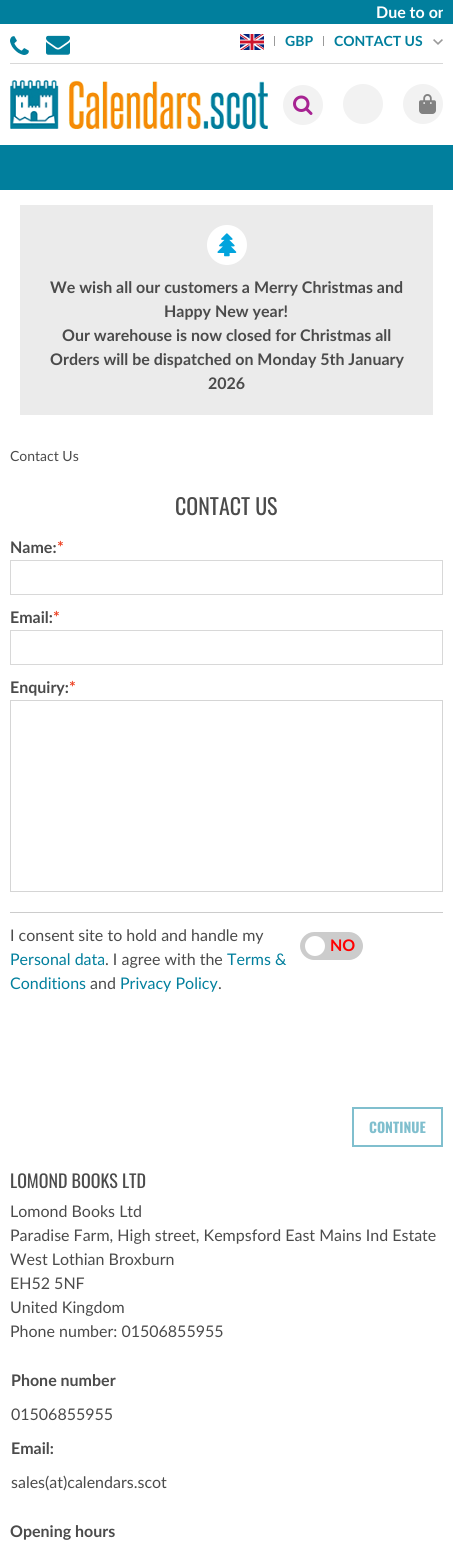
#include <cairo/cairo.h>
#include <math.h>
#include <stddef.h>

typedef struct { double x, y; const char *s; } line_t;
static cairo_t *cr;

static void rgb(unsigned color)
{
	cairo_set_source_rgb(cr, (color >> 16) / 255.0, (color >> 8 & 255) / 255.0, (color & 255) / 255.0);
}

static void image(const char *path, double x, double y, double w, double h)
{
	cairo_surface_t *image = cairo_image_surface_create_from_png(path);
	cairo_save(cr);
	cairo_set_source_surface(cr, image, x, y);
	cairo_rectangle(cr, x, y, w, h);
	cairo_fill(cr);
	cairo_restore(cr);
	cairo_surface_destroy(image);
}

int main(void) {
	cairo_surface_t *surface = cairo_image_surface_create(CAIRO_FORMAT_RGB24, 453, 1543);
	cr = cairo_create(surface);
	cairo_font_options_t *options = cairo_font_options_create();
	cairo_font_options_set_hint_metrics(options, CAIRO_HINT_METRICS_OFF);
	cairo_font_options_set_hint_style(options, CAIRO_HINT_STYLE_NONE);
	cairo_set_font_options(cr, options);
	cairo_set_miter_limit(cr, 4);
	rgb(0xffffff);
	cairo_paint(cr);
	rgb(0x017f9d);
	cairo_rectangle(cr, 0, 0, 453, 24);
	cairo_fill(cr);
	rgb(0xd8d8d8);
	cairo_rectangle(cr, 10, 63, 433, 1);
	cairo_fill(cr);
	image("img/1.png", 10, 36, 19, 19);
	image("img/2.png", 46, 35, 24, 20);
	image("img/3.png", 240, 34, 24, 16);
	rgb(0x9a9a9a);
	cairo_rectangle(cr, 323, 36, 1, 10);
	cairo_fill(cr);
	cairo_rectangle(cr, 274, 36, 1, 10);
	cairo_fill(cr);
	image("img/4.png", 433, 39, 10, 6);
	image("img/5.png", 10, 80, 258, 49);
	rgb(0xf2f2f2);
	cairo_arc(cr, 303, 105, 20, 0, 2 * M_PI);
	cairo_fill(cr);
	image("img/6.png", 293, 95, 20, 20);
	cairo_arc(cr, 363, 104, 20, 0, 2 * M_PI);
	cairo_fill(cr);
	cairo_arc(cr, 423, 104, 20, 0, 2 * M_PI);
	cairo_fill(cr);
	image("img/7.png", 419, 94, 17, 20);
	rgb(0x017f9d);
	cairo_rectangle(cr, 0, 145, 453, 45);
	cairo_fill(cr);
	rgb(0xebebeb);
	cairo_rectangle(cr, 20, 205, 413, 210);
	cairo_fill(cr);
	rgb(0xffffff);
	cairo_arc(cr, 227, 245, 20, 0, 2 * M_PI);
	cairo_fill(cr);
	image("img/8.png", 217, 233, 20, 24);
	cairo_rectangle(cr, 10.5, 560.5, 432, 34);
	rgb(0xd8d8d8);
	cairo_set_line_width(cr, 1);
	cairo_stroke(cr);
	cairo_rectangle(cr, 10.5, 630.5, 432, 34);
	cairo_stroke(cr);
	cairo_rectangle(cr, 10.5, 700.5, 432, 191);
	rgb(0xd5d5d5);
	cairo_stroke(cr);
	rgb(0xcccccc);
	cairo_rectangle(cr, 10, 912, 433, 1);
	cairo_fill(cr);
	cairo_new_path(cr);
	cairo_move_to(cr, 314, 932);
	cairo_line_to(cr, 330, 932);
	cairo_line_to(cr, 330, 960);
	cairo_line_to(cr, 314, 960);
	cairo_curve_to(cr, 306.5, 960, 300, 953.5, 300, 946);
	cairo_curve_to(cr, 300, 938.5, 306.5, 932, 314, 932);
	cairo_close_path(cr);
	cairo_fill(cr);
	rgb(0xffffff);
	cairo_arc(cr, 315, 946, 10, 0, 2 * M_PI);
	cairo_fill(cr);
	rgb(0xcccccc);
	cairo_new_path(cr);
	cairo_move_to(cr, 330, 932);
	cairo_line_to(cr, 349, 932);
	cairo_curve_to(cr, 356.5, 932, 363, 938.5, 363, 946);
	cairo_curve_to(cr, 363, 953.5, 356.5, 960, 349, 960);
	cairo_line_to(cr, 330, 960);
	cairo_close_path(cr);
	cairo_fill(cr);
	cairo_rectangle(cr, 353, 1108, 89, 38);
	rgb(0x80bfce);
	cairo_set_line_width(cr, 2);
	cairo_stroke(cr);
	cairo_save(cr);
	cairo_rectangle(cr, 10, 0, 433, 24);
	cairo_clip(cr);
	cairo_select_font_face(cr, "Lato", CAIRO_FONT_SLANT_NORMAL, CAIRO_FONT_WEIGHT_BOLD);
	cairo_set_font_size(cr, 16);
	rgb(0xffffff);
	cairo_move_to(cr, 376, 18);
	cairo_show_text(cr, "Due to on");
	cairo_restore(cr);
	cairo_select_font_face(cr, "Lato", CAIRO_FONT_SLANT_NORMAL, CAIRO_FONT_WEIGHT_BOLD);
	cairo_set_font_size(cr, 14);
	rgb(0x017f9d);
	cairo_move_to(cr, 285, 46);
	cairo_show_text(cr, "GBP");
	cairo_move_to(cr, 334, 46);
	cairo_show_text(cr, "CONTACT US");
	cairo_set_font_size(cr, 16);
	rgb(0x4b4b4b);
	{
		static const line_t items[] = {
			{50, 293, "We wish all our customers a Merry Christmas and"},
			{164, 317, "Happy New year!"},
			{62, 341, "Our warehouse is now closed for Christmas all"},
			{50, 365, "Orders will be dispatched on Monday 5th January"},
			{208, 389, "2026"},
		};
		for (size_t i = 0; i < sizeof items / sizeof *items; i++) {
			cairo_move_to(cr, items[i].x, items[i].y);
			cairo_show_text(cr, items[i].s);
		}
	}
	cairo_select_font_face(cr, "Lato", CAIRO_FONT_SLANT_NORMAL, CAIRO_FONT_WEIGHT_NORMAL);
	cairo_set_font_size(cr, 14);
	cairo_move_to(cr, 10, 461);
	cairo_show_text(cr, "Contact Us");
	cairo_select_font_face(cr, "Oswald", CAIRO_FONT_SLANT_NORMAL, CAIRO_FONT_WEIGHT_NORMAL);
	cairo_set_font_size(cr, 22);
	cairo_move_to(cr, 175, 515);
	cairo_show_text(cr, "CONTACT US");
	cairo_select_font_face(cr, "Lato", CAIRO_FONT_SLANT_NORMAL, CAIRO_FONT_WEIGHT_BOLD);
	cairo_set_font_size(cr, 16);
	cairo_move_to(cr, 10, 553);
	cairo_show_text(cr, "Name:");
	rgb(0xed4224);
	cairo_move_to(cr, 57, 553);
	cairo_show_text(cr, "*");
	rgb(0x4b4b4b);
	cairo_move_to(cr, 10, 623);
	cairo_show_text(cr, "Email:");
	rgb(0xed4224);
	cairo_move_to(cr, 53, 623);
	cairo_show_text(cr, "*");
	rgb(0x4b4b4b);
	cairo_move_to(cr, 10, 693);
	cairo_show_text(cr, "Enquiry:");
	rgb(0xed4224);
	cairo_move_to(cr, 69, 693);
	cairo_show_text(cr, "*");
	cairo_select_font_face(cr, "Lato", CAIRO_FONT_SLANT_NORMAL, CAIRO_FONT_WEIGHT_NORMAL);
	rgb(0x4b4b4b);
	cairo_move_to(cr, 10, 941);
	cairo_show_text(cr, "I consent site to hold and handle my");
	cairo_select_font_face(cr, "Lato", CAIRO_FONT_SLANT_NORMAL, CAIRO_FONT_WEIGHT_BOLD);
	rgb(0xff0000);
	cairo_move_to(cr, 330, 951);
	cairo_show_text(cr, "NO");
	cairo_select_font_face(cr, "Lato", CAIRO_FONT_SLANT_NORMAL, CAIRO_FONT_WEIGHT_NORMAL);
	rgb(0x017f9d);
	cairo_move_to(cr, 10, 965);
	cairo_show_text(cr, "Personal data");
	rgb(0x4b4b4b);
	cairo_move_to(cr, 105, 965);
	cairo_show_text(cr, ". I agree with the");
	rgb(0x017f9d);
	cairo_move_to(cr, 227, 965);
	cairo_show_text(cr, "Terms &");
	cairo_move_to(cr, 10, 989);
	cairo_show_text(cr, "Conditions");
	rgb(0x4b4b4b);
	cairo_move_to(cr, 90, 989);
	cairo_show_text(cr, "and");
	rgb(0x017f9d);
	cairo_move_to(cr, 120, 989);
	cairo_show_text(cr, "Privacy Policy");
	rgb(0x4b4b4b);
	cairo_move_to(cr, 218, 989);
	cairo_show_text(cr, ".");
	cairo_select_font_face(cr, "Oswald", CAIRO_FONT_SLANT_NORMAL, CAIRO_FONT_WEIGHT_BOLD);
	cairo_set_font_size(cr, 14);
	rgb(0x80bfce);
	cairo_move_to(cr, 369, 1133);
	cairo_show_text(cr, "CONTINUE");
	cairo_select_font_face(cr, "Oswald", CAIRO_FONT_SLANT_NORMAL, CAIRO_FONT_WEIGHT_NORMAL);
	cairo_set_font_size(cr, 18);
	rgb(0x4b4b4b);
	cairo_move_to(cr, 10, 1188);
	cairo_show_text(cr, "LOMOND BOOKS LTD");
	cairo_select_font_face(cr, "Lato", CAIRO_FONT_SLANT_NORMAL, CAIRO_FONT_WEIGHT_NORMAL);
	cairo_set_font_size(cr, 16);
	{
		static const line_t items[] = {
			{10, 1217, "Lomond Books Ltd"},
			{10, 1241, "Paradise Farm, High street, Kempsford East Mains Ind Estate"},
			{10, 1265, "West Lothian Broxburn"},
			{10, 1289, "EH52 5NF"},
			{10, 1313, "United Kingdom"},
			{10, 1337, "Phone number: 01506855955"},
		};
		for (size_t i = 0; i < sizeof items / sizeof *items; i++) {
			cairo_move_to(cr, items[i].x, items[i].y);
			cairo_show_text(cr, items[i].s);
		}
	}
	cairo_select_font_face(cr, "Lato", CAIRO_FONT_SLANT_NORMAL, CAIRO_FONT_WEIGHT_BOLD);
	cairo_move_to(cr, 11, 1386);
	cairo_show_text(cr, "Phone number");
	cairo_select_font_face(cr, "Lato", CAIRO_FONT_SLANT_NORMAL, CAIRO_FONT_WEIGHT_NORMAL);
	cairo_move_to(cr, 11, 1420);
	cairo_show_text(cr, "01506855955");
	cairo_select_font_face(cr, "Lato", CAIRO_FONT_SLANT_NORMAL, CAIRO_FONT_WEIGHT_BOLD);
	cairo_move_to(cr, 11, 1454);
	cairo_show_text(cr, "Email:");
	cairo_select_font_face(cr, "Lato", CAIRO_FONT_SLANT_NORMAL, CAIRO_FONT_WEIGHT_NORMAL);
	cairo_move_to(cr, 11, 1488);
	cairo_show_text(cr, "sales(at)calendars.scot");
	cairo_select_font_face(cr, "Lato", CAIRO_FONT_SLANT_NORMAL, CAIRO_FONT_WEIGHT_BOLD);
	cairo_move_to(cr, 10, 1537);
	cairo_show_text(cr, "Opening hours");
	cairo_surface_write_to_png(surface, "page.png");
	cairo_font_options_destroy(options);
	cairo_destroy(cr);
	cairo_surface_destroy(surface);
	return 0;
}
